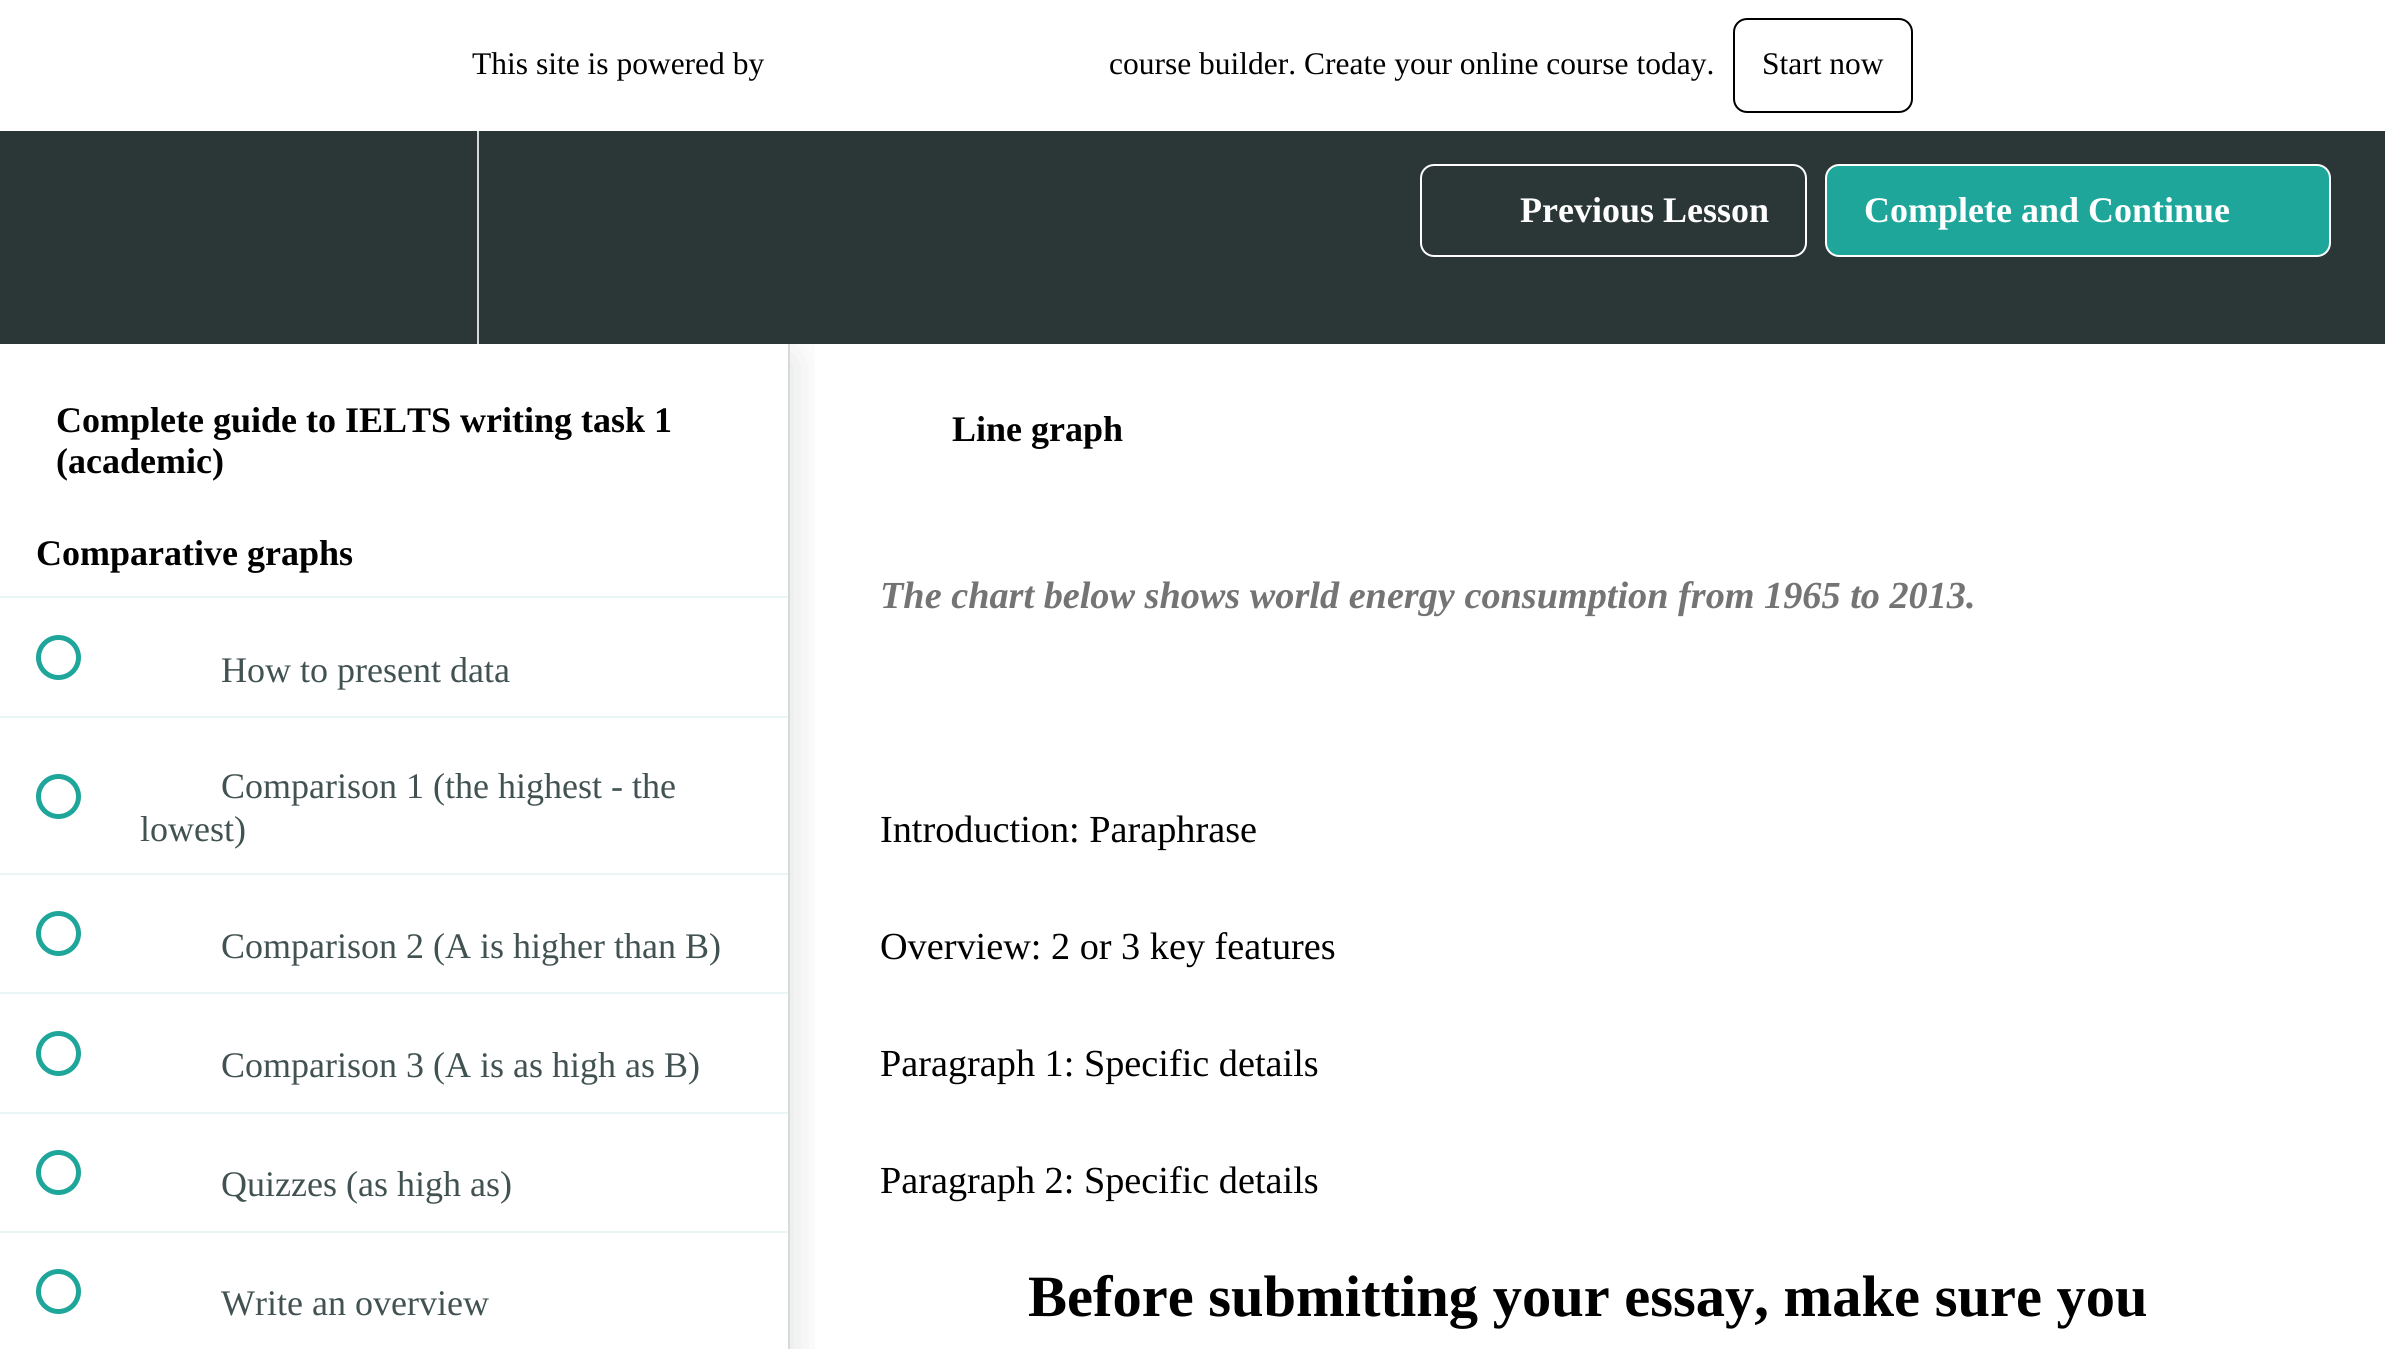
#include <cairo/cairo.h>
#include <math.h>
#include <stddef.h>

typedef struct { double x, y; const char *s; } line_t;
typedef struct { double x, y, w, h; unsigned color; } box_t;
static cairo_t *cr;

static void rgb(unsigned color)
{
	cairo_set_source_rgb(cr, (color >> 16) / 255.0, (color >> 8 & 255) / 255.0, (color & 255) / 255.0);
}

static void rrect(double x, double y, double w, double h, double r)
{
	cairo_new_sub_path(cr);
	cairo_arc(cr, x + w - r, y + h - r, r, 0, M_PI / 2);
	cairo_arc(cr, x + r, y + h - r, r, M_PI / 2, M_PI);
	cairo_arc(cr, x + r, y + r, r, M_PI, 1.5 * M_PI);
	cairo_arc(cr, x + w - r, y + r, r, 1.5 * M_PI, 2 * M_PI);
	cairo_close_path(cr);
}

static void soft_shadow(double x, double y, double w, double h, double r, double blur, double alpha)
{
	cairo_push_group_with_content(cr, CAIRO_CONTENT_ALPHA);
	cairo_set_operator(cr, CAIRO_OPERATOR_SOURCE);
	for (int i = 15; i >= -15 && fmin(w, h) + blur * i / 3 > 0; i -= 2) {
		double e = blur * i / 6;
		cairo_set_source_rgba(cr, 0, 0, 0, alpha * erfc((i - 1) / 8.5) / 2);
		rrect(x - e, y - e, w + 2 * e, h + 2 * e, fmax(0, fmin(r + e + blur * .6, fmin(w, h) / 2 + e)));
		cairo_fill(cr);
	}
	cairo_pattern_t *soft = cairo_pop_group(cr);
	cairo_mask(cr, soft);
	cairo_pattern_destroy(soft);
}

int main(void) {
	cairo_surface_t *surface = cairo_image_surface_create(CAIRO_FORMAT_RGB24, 2385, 1349);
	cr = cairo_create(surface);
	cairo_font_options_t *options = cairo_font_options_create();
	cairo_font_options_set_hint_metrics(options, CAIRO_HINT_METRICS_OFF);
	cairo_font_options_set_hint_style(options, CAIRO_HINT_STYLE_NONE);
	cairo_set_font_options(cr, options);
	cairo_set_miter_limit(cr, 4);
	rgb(0xffffff);
	cairo_paint(cr);
	cairo_save(cr);
	cairo_rectangle(cr, 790, 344, 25, 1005);
	cairo_clip(cr);
	rgb(0x20272d);
	soft_shadow(0, 358, 790, 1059, 0, 22.5, 0.15);
	cairo_restore(cr);
	rgb(0x2b3636);
	cairo_rectangle(cr, 0, 131, 2385, 213);
	cairo_fill(cr);
	rrect(1734, 19, 178, 93, 13);
	rgb(0x000000);
	cairo_stroke(cr);
	rgb(0xd7dadb);
	cairo_rectangle(cr, 477, 131, 2, 213);
	cairo_fill(cr);
	rrect(1421, 165, 385, 91, 13);
	rgb(0xffffff);
	cairo_stroke(cr);
	rgb(0x1ea69a);
	rrect(1826, 165, 504, 91, 13);
	cairo_fill_preserve(cr);
	rgb(0xffffff);
	cairo_stroke(cr);
	{
		static const box_t items[] = {
			{788, 344, 2, 1005, 0xd7dadb},
			{0, 596, 788, 2, 0xe9f6f5},
			{0, 716, 788, 2, 0xe9f6f5},
		};
		for (size_t i = 0; i < sizeof items / sizeof *items; i++) {
			rgb(items[i].color);
			cairo_rectangle(cr, items[i].x, items[i].y, items[i].w, items[i].h);
			cairo_fill(cr);
		}
	}
	cairo_arc(cr, 58.5, 657.5, 20, 0, 2 * M_PI);
	rgb(0x1ea69a);
	cairo_set_line_width(cr, 5);
	cairo_stroke(cr);
	rgb(0xe9f6f5);
	cairo_rectangle(cr, 0, 873, 788, 2);
	cairo_fill(cr);
	cairo_arc(cr, 58.5, 796.5, 20, 0, 2 * M_PI);
	rgb(0x1ea69a);
	cairo_stroke(cr);
	rgb(0xe9f6f5);
	cairo_rectangle(cr, 0, 992, 788, 2);
	cairo_fill(cr);
	cairo_arc(cr, 58.5, 933.5, 20, 0, 2 * M_PI);
	rgb(0x1ea69a);
	cairo_stroke(cr);
	rgb(0xe9f6f5);
	cairo_rectangle(cr, 0, 1112, 788, 2);
	cairo_fill(cr);
	cairo_arc(cr, 58.5, 1053.5, 20, 0, 2 * M_PI);
	rgb(0x1ea69a);
	cairo_stroke(cr);
	rgb(0xe9f6f5);
	cairo_rectangle(cr, 0, 1231, 788, 2);
	cairo_fill(cr);
	cairo_arc(cr, 58.5, 1172.5, 20, 0, 2 * M_PI);
	rgb(0x1ea69a);
	cairo_stroke(cr);
	cairo_arc(cr, 58.5, 1291.5, 20, 0, 2 * M_PI);
	cairo_stroke(cr);
	cairo_select_font_face(cr, "Liberation Serif", CAIRO_FONT_SLANT_NORMAL, CAIRO_FONT_WEIGHT_NORMAL);
	cairo_set_font_size(cr, 31.5);
	rgb(0x000000);
	{
		static const line_t items[] = {
			{472, 74, "This site is powered by"},
			{1109, 74, "course builder. Create your online course today."},
			{1762, 74, "Start now"},
		};
		for (size_t i = 0; i < sizeof items / sizeof *items; i++) {
			cairo_move_to(cr, items[i].x, items[i].y);
			cairo_show_text(cr, items[i].s);
		}
	}
	cairo_select_font_face(cr, "Liberation Serif", CAIRO_FONT_SLANT_NORMAL, CAIRO_FONT_WEIGHT_BOLD);
	cairo_set_font_size(cr, 36);
	rgb(0xffffff);
	cairo_move_to(cr, 1520, 222);
	cairo_show_text(cr, "Previous Lesson");
	cairo_move_to(cr, 1864, 222);
	cairo_show_text(cr, "Complete and Continue");
	rgb(0x000000);
	{
		static const line_t items[] = {
			{56, 432, "Complete guide to IELTS writing task 1"},
			{56, 473, "(academic)"},
			{36, 565, "Comparative graphs"},
		};
		for (size_t i = 0; i < sizeof items / sizeof *items; i++) {
			cairo_move_to(cr, items[i].x, items[i].y);
			cairo_show_text(cr, items[i].s);
		}
	}
	cairo_select_font_face(cr, "Liberation Serif", CAIRO_FONT_SLANT_NORMAL, CAIRO_FONT_WEIGHT_NORMAL);
	rgb(0x425252);
	{
		static const line_t items[] = {
			{221, 682, "How to present data"},
			{221, 798, "Comparison 1 (the highest - the"},
			{140, 841, "lowest)"},
			{221, 958, "Comparison 2 (A is higher than B)"},
			{221, 1077, "Comparison 3 (A is as high as B)"},
			{221, 1196, "Quizzes (as high as)"},
			{221, 1315, "Write an overview"},
		};
		for (size_t i = 0; i < sizeof items / sizeof *items; i++) {
			cairo_move_to(cr, items[i].x, items[i].y);
			cairo_show_text(cr, items[i].s);
		}
	}
	cairo_select_font_face(cr, "Liberation Serif", CAIRO_FONT_SLANT_NORMAL, CAIRO_FONT_WEIGHT_BOLD);
	rgb(0x000000);
	cairo_move_to(cr, 952, 441);
	cairo_show_text(cr, "Line graph");
	cairo_select_font_face(cr, "Liberation Serif", CAIRO_FONT_SLANT_ITALIC, CAIRO_FONT_WEIGHT_BOLD);
	cairo_set_font_size(cr, 38.25);
	rgb(0x757474);
	cairo_move_to(cr, 880, 608);
	cairo_show_text(cr, "The chart below shows world energy consumption from 1965 to 2013.");
	cairo_select_font_face(cr, "Liberation Serif", CAIRO_FONT_SLANT_NORMAL, CAIRO_FONT_WEIGHT_NORMAL);
	rgb(0x000000);
	{
		static const line_t items[] = {
			{880, 842, "Introduction: Paraphrase"},
			{880, 959, "Overview: 2 or 3 key features"},
			{880, 1076, "Paragraph 1: Specific details"},
			{880, 1193, "Paragraph 2: Specific details"},
		};
		for (size_t i = 0; i < sizeof items / sizeof *items; i++) {
			cairo_move_to(cr, items[i].x, items[i].y);
			cairo_show_text(cr, items[i].s);
		}
	}
	cairo_select_font_face(cr, "Liberation Serif", CAIRO_FONT_SLANT_NORMAL, CAIRO_FONT_WEIGHT_BOLD);
	cairo_set_font_size(cr, 58.5);
	cairo_move_to(cr, 1028, 1316);
	cairo_show_text(cr, "Before submitting your essay, make sure you");
	cairo_surface_write_to_png(surface, "page.png");
	cairo_font_options_destroy(options);
	cairo_destroy(cr);
	cairo_surface_destroy(surface);
	return 0;
}
